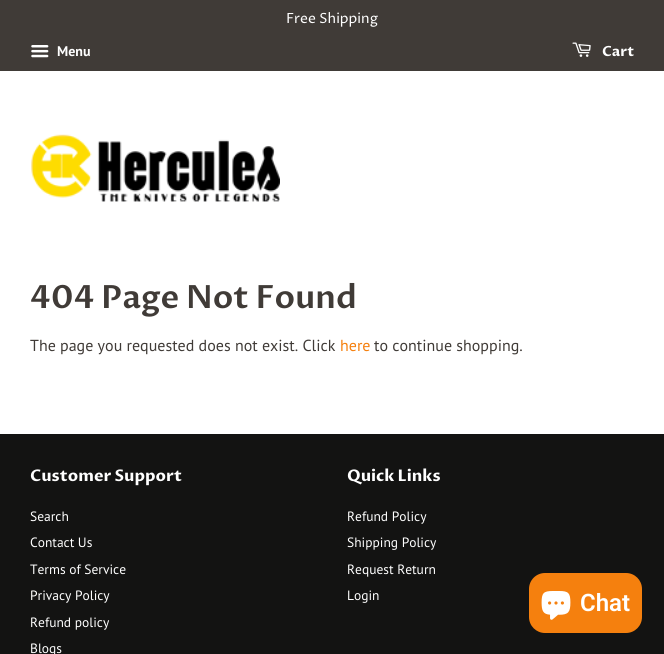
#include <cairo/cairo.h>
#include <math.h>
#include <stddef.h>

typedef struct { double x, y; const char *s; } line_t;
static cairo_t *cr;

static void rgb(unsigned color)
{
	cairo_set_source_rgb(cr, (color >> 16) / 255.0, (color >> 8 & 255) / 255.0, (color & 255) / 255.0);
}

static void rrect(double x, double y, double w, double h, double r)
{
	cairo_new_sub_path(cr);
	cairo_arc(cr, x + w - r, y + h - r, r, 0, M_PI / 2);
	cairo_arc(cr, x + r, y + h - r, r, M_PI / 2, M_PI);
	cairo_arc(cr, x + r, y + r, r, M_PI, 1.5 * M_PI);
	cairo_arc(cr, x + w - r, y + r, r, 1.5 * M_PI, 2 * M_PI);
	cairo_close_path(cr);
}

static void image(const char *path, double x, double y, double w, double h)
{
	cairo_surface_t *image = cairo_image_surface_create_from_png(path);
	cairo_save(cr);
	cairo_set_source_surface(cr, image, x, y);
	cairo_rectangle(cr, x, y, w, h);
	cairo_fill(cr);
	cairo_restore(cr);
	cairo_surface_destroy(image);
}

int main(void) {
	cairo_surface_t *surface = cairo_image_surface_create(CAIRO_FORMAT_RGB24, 664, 654);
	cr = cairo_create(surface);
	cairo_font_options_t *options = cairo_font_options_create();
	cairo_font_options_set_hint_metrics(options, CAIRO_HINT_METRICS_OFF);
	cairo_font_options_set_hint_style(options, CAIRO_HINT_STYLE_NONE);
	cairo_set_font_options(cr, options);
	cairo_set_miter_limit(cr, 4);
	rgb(0xffffff);
	cairo_paint(cr);
	rgb(0x403b37);
	cairo_rectangle(cr, 0, 0, 664, 71);
	cairo_fill(cr);
	image("img/1.png", 31, 45, 18, 13);
	image("img/2.png", 572, 42, 19, 15);
	image("img/3.png", 31, 134, 249, 68);
	rgb(0x131312);
	cairo_rectangle(cr, 0, 434, 664, 220);
	cairo_fill(cr);
	rgb(0xf5800e);
	rrect(529, 573, 113, 60, 16);
	cairo_fill(cr);
	image("img/4.png", 541, 591, 30, 29);
	cairo_select_font_face(cr, "Proza Libre", CAIRO_FONT_SLANT_NORMAL, CAIRO_FONT_WEIGHT_NORMAL);
	cairo_set_font_size(cr, 14);
	rgb(0xffffff);
	cairo_move_to(cr, 286, 23);
	cairo_show_text(cr, "Free Shipping");
	cairo_select_font_face(cr, "PT Sans", CAIRO_FONT_SLANT_NORMAL, CAIRO_FONT_WEIGHT_BOLD);
	cairo_move_to(cr, 57, 56);
	cairo_show_text(cr, "Menu");
	cairo_select_font_face(cr, "Proza Libre", CAIRO_FONT_SLANT_NORMAL, CAIRO_FONT_WEIGHT_BOLD);
	cairo_move_to(cr, 602, 56);
	cairo_show_text(cr, "Cart");
	cairo_select_font_face(cr, "Proza Libre SemiBold", CAIRO_FONT_SLANT_NORMAL, CAIRO_FONT_WEIGHT_NORMAL);
	cairo_set_font_size(cr, 32);
	rgb(0x403b37);
	cairo_move_to(cr, 30, 308);
	cairo_show_text(cr, "404 Page Not Found");
	cairo_select_font_face(cr, "PT Sans", CAIRO_FONT_SLANT_NORMAL, CAIRO_FONT_WEIGHT_NORMAL);
	cairo_set_font_size(cr, 16);
	cairo_move_to(cr, 30, 351);
	cairo_show_text(cr, "The page you requested does not exist. Click");
	rgb(0xf5800e);
	cairo_move_to(cr, 340, 351);
	cairo_show_text(cr, "here");
	rgb(0x403b37);
	cairo_move_to(cr, 374, 351);
	cairo_show_text(cr, "to continue shopping.");
	cairo_select_font_face(cr, "Proza Libre", CAIRO_FONT_SLANT_NORMAL, CAIRO_FONT_WEIGHT_BOLD);
	rgb(0xffffff);
	cairo_move_to(cr, 30, 481);
	cairo_show_text(cr, "Customer Support");
	cairo_select_font_face(cr, "PT Sans", CAIRO_FONT_SLANT_NORMAL, CAIRO_FONT_WEIGHT_NORMAL);
	cairo_set_font_size(cr, 13.5);
	{
		static const line_t items[] = {
			{30, 521, "Search"},
			{30, 547, "Contact Us"},
			{30, 574, "Terms of Service"},
			{30, 600, "Privacy Policy"},
			{30, 627, "Refund policy"},
			{30, 653, "Blogs"},
		};
		for (size_t i = 0; i < sizeof items / sizeof *items; i++) {
			cairo_move_to(cr, items[i].x, items[i].y);
			cairo_show_text(cr, items[i].s);
		}
	}
	cairo_select_font_face(cr, "Proza Libre", CAIRO_FONT_SLANT_NORMAL, CAIRO_FONT_WEIGHT_BOLD);
	cairo_set_font_size(cr, 16);
	cairo_move_to(cr, 347, 481);
	cairo_show_text(cr, "Quick Links");
	cairo_select_font_face(cr, "PT Sans", CAIRO_FONT_SLANT_NORMAL, CAIRO_FONT_WEIGHT_NORMAL);
	cairo_set_font_size(cr, 13.5);
	{
		static const line_t items[] = {
			{347, 521, "Refund Policy"},
			{347, 547, "Shipping Policy"},
			{347, 574, "Request Return"},
			{347, 600, "Login"},
		};
		for (size_t i = 0; i < sizeof items / sizeof *items; i++) {
			cairo_move_to(cr, items[i].x, items[i].y);
			cairo_show_text(cr, items[i].s);
		}
	}
	cairo_select_font_face(cr, "Roboto SemiBold", CAIRO_FONT_SLANT_NORMAL, CAIRO_FONT_WEIGHT_NORMAL);
	cairo_set_font_size(cr, 24);
	cairo_move_to(cr, 580, 611);
	cairo_show_text(cr, "Chat");
	cairo_surface_write_to_png(surface, "page.png");
	cairo_font_options_destroy(options);
	cairo_destroy(cr);
	cairo_surface_destroy(surface);
	return 0;
}
